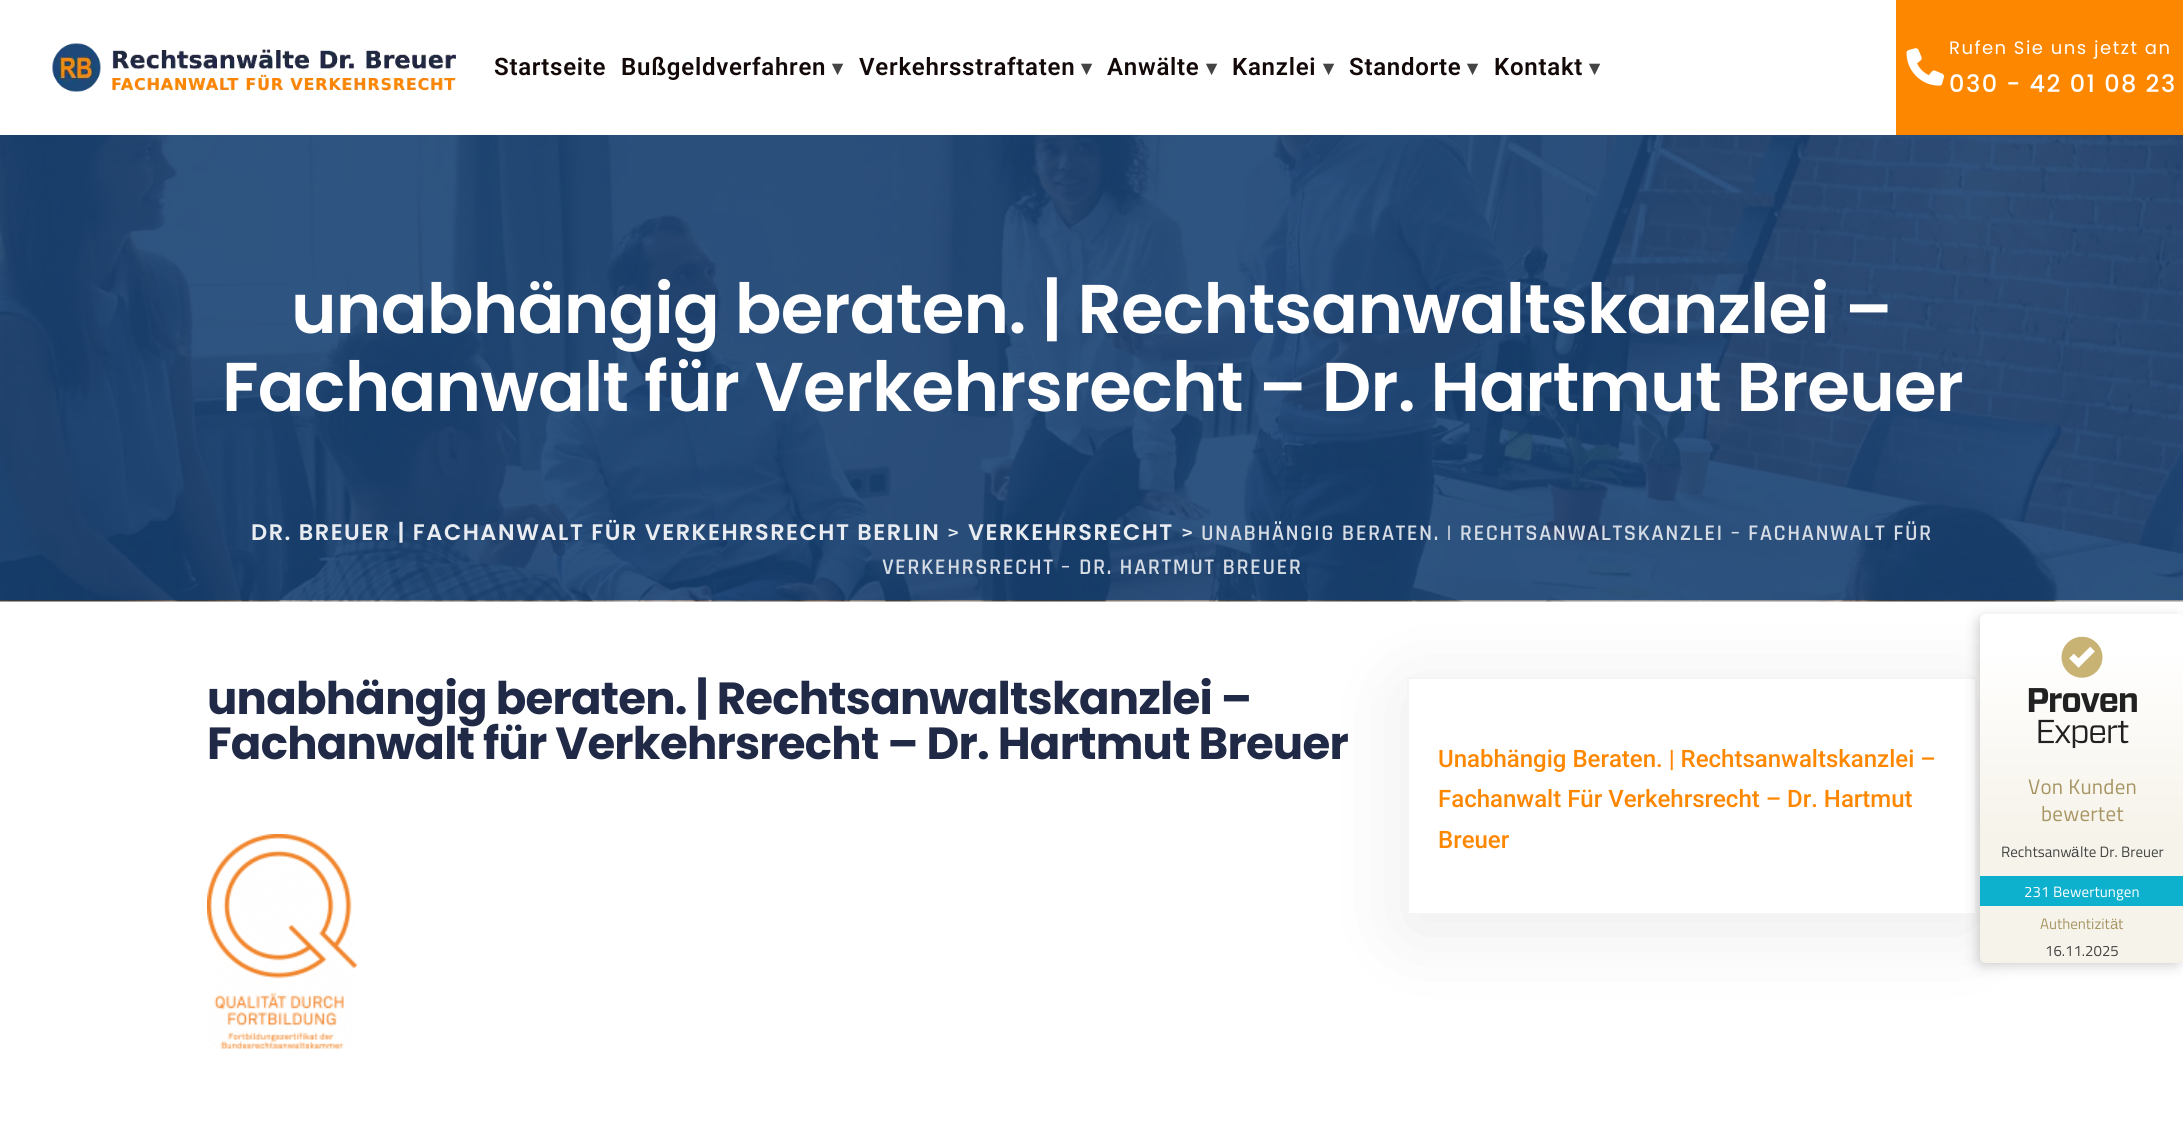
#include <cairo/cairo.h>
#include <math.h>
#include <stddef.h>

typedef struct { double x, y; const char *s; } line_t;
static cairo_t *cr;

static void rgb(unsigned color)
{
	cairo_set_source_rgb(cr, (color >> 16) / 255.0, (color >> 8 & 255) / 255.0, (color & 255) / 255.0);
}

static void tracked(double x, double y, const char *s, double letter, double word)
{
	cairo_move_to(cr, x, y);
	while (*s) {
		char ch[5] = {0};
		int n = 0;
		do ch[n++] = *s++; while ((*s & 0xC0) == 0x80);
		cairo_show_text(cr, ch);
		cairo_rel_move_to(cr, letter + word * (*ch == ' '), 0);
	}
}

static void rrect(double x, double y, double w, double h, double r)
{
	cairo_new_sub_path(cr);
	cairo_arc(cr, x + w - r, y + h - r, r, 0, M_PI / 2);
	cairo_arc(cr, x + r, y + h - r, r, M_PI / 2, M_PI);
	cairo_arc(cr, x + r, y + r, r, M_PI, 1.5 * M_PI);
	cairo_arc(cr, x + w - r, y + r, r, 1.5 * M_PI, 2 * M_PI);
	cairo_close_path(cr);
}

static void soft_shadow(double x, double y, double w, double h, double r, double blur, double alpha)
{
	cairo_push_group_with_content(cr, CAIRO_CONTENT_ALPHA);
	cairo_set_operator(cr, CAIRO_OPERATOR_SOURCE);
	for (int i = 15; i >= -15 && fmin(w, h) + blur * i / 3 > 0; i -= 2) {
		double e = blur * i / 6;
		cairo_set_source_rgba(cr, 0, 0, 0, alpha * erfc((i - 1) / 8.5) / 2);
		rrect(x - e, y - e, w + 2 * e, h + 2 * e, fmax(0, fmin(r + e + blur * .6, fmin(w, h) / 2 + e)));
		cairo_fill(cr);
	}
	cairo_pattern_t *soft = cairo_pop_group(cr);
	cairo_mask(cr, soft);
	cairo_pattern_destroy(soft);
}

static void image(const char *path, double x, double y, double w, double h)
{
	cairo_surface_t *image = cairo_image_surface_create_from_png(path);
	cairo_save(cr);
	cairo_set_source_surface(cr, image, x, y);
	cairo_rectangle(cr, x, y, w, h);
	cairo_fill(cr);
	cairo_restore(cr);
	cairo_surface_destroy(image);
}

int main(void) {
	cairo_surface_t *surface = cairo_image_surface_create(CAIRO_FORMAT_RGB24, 2183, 1135);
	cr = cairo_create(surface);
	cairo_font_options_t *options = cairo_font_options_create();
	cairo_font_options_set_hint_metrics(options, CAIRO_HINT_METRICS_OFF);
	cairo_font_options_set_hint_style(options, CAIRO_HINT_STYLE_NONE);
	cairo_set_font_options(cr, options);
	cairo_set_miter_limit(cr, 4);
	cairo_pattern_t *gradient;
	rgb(0xffffff);
	cairo_paint(cr);
	image("img/1.png", 52, 43, 404, 49);
	rgb(0xfe8700);
	cairo_rectangle(cr, 1896, 0, 287, 135);
	cairo_fill(cr);
	image("img/2.png", 1906, 48, 38, 38);
	image("img/3.png", 0, 135, 2183, 467);
	cairo_set_source_rgba(cr, 1, 1, 1, 0.23);
	cairo_rectangle(cr, 0, 600, 2183, 2);
	cairo_fill(cr);
	image("img/4.png", 207, 834, 150, 216);
	cairo_save(cr);
	cairo_set_fill_rule(cr, CAIRO_FILL_RULE_EVEN_ODD);
	cairo_new_path(cr);
	cairo_move_to(cr, 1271, 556);
	cairo_line_to(cr, 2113, 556);
	cairo_line_to(cr, 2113, 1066);
	cairo_line_to(cr, 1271, 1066);
	cairo_close_path(cr);
	cairo_move_to(cr, 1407, 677);
	cairo_line_to(cr, 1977, 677);
	cairo_line_to(cr, 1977, 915);
	cairo_line_to(cr, 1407, 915);
	cairo_close_path(cr);
	cairo_clip(cr);
	rgb(0x000000);
	soft_shadow(1407, 692, 570, 238, 0, 45, 0.08);
	cairo_restore(cr);
	cairo_rectangle(cr, 1408, 678, 568, 236);
	rgb(0xf5f5f5);
	cairo_stroke(cr);
	rgb(0x000000);
	soft_shadow(1980, 620, 198, 343, 3, 7.5, 0.25);
	gradient = cairo_pattern_create_linear(2082, 963, 2082, 614);
	cairo_pattern_add_color_stop_rgba(gradient, 0.37, 0.965, 0.953, 0.918, 1);
	cairo_pattern_add_color_stop_rgba(gradient, 0.9, 1, 1, 1, 1);
	cairo_set_source(cr, gradient);
	cairo_pattern_destroy(gradient);
	rrect(1980, 614, 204, 349, 6);
	cairo_fill(cr);
	image("img/5.png", 2028, 636, 109, 113);
	rgb(0x0db1cd);
	cairo_rectangle(cr, 1980, 876, 203, 30);
	cairo_fill(cr);
	cairo_select_font_face(cr, "Roboto SemiBold", CAIRO_FONT_SLANT_NORMAL, CAIRO_FONT_WEIGHT_NORMAL);
	cairo_set_font_size(cr, 24);
	rgb(0x140909);
	tracked(494, 75, "Startseite", 0.75, 0);
	tracked(621, 75, "Bußgeldverfahren", 0.75, 0);
	cairo_select_font_face(cr, "DejaVu Sans", CAIRO_FONT_SLANT_NORMAL, CAIRO_FONT_WEIGHT_BOLD);
	cairo_set_font_size(cr, 21);
	rgb(0x444444);
	tracked(832, 75, "▾", 0.75, 0);
	cairo_select_font_face(cr, "Roboto SemiBold", CAIRO_FONT_SLANT_NORMAL, CAIRO_FONT_WEIGHT_NORMAL);
	cairo_set_font_size(cr, 24);
	rgb(0x140909);
	tracked(859, 75, "Verkehrsstraftaten", 0.75, 0);
	cairo_select_font_face(cr, "DejaVu Sans", CAIRO_FONT_SLANT_NORMAL, CAIRO_FONT_WEIGHT_BOLD);
	cairo_set_font_size(cr, 21);
	rgb(0x444444);
	tracked(1081, 75, "▾", 0.75, 0);
	cairo_select_font_face(cr, "Roboto SemiBold", CAIRO_FONT_SLANT_NORMAL, CAIRO_FONT_WEIGHT_NORMAL);
	cairo_set_font_size(cr, 24);
	rgb(0x140909);
	tracked(1107, 75, "Anwälte", 0.75, 0);
	cairo_select_font_face(cr, "DejaVu Sans", CAIRO_FONT_SLANT_NORMAL, CAIRO_FONT_WEIGHT_BOLD);
	cairo_set_font_size(cr, 21);
	rgb(0x444444);
	tracked(1206, 75, "▾", 0.75, 0);
	cairo_select_font_face(cr, "Roboto SemiBold", CAIRO_FONT_SLANT_NORMAL, CAIRO_FONT_WEIGHT_NORMAL);
	cairo_set_font_size(cr, 24);
	rgb(0x140909);
	tracked(1232, 75, "Kanzlei", 0.75, 0);
	cairo_select_font_face(cr, "DejaVu Sans", CAIRO_FONT_SLANT_NORMAL, CAIRO_FONT_WEIGHT_BOLD);
	cairo_set_font_size(cr, 21);
	rgb(0x444444);
	tracked(1323, 75, "▾", 0.75, 0);
	cairo_select_font_face(cr, "Roboto SemiBold", CAIRO_FONT_SLANT_NORMAL, CAIRO_FONT_WEIGHT_NORMAL);
	cairo_set_font_size(cr, 24);
	rgb(0x140909);
	tracked(1349, 75, "Standorte", 0.75, 0);
	cairo_select_font_face(cr, "DejaVu Sans", CAIRO_FONT_SLANT_NORMAL, CAIRO_FONT_WEIGHT_BOLD);
	cairo_set_font_size(cr, 21);
	rgb(0x444444);
	tracked(1467, 75, "▾", 0.75, 0);
	cairo_select_font_face(cr, "Roboto SemiBold", CAIRO_FONT_SLANT_NORMAL, CAIRO_FONT_WEIGHT_NORMAL);
	cairo_set_font_size(cr, 24);
	rgb(0x140909);
	tracked(1494, 75, "Kontakt", 0.75, 0);
	cairo_select_font_face(cr, "DejaVu Sans", CAIRO_FONT_SLANT_NORMAL, CAIRO_FONT_WEIGHT_BOLD);
	cairo_set_font_size(cr, 21);
	rgb(0x444444);
	tracked(1589, 75, "▾", 0.75, 0);
	cairo_select_font_face(cr, "Poppins", CAIRO_FONT_SLANT_NORMAL, CAIRO_FONT_WEIGHT_NORMAL);
	cairo_set_font_size(cr, 18);
	rgb(0xffffff);
	tracked(1949, 54, "Rufen Sie uns jetzt an", 1.5, 0);
	cairo_select_font_face(cr, "Poppins Medium", CAIRO_FONT_SLANT_NORMAL, CAIRO_FONT_WEIGHT_NORMAL);
	cairo_set_font_size(cr, 24);
	tracked(1949, 92, "030 - 42 01 08 23", 1.5, 0);
	cairo_select_font_face(cr, "Poppins SemiBold", CAIRO_FONT_SLANT_NORMAL, CAIRO_FONT_WEIGHT_NORMAL);
	cairo_set_font_size(cr, 69);
	tracked(291, 333, "unabhängig beraten. | Rechtsanwaltskanzlei –", -0.75, 0);
	tracked(222, 411, "Fachanwalt für Verkehrsrecht – Dr. Hartmut Breuer", -0.75, 0);
	cairo_set_font_size(cr, 22.5);
	rgb(0xe9edf1);
	tracked(251, 540, "DR. BREUER | FACHANWALT FÜR VERKEHRSRECHT BERLIN", 1.5, 0);
	cairo_select_font_face(cr, "Rajdhani SemiBold", CAIRO_FONT_SLANT_NORMAL, CAIRO_FONT_WEIGHT_NORMAL);
	tracked(947, 540, ">", 1.5, 0);
	cairo_select_font_face(cr, "Poppins SemiBold", CAIRO_FONT_SLANT_NORMAL, CAIRO_FONT_WEIGHT_NORMAL);
	tracked(968, 540, "VERKEHRSRECHT", 1.5, 0);
	cairo_select_font_face(cr, "Rajdhani SemiBold", CAIRO_FONT_SLANT_NORMAL, CAIRO_FONT_WEIGHT_NORMAL);
	tracked(1181, 540, ">", 1.5, 0);
	rgb(0xd6dce5);
	{
		static const line_t items[] = {
			{1201, 540, "UNABHÄNGIG BERATEN. | RECHTSANWALTSKANZLEI – FACHANWALT FÜR"},
			{882, 574, "VERKEHRSRECHT"},
			{1061, 574, "–"},
			{1079, 574, "DR. HARTMUT BREUER"},
		};
		for (size_t i = 0; i < sizeof items / sizeof *items; i++) {
			tracked(items[i].x, items[i].y, items[i].s, 1.5, 0);
		}
	}
	cairo_select_font_face(cr, "Poppins", CAIRO_FONT_SLANT_NORMAL, CAIRO_FONT_WEIGHT_BOLD);
	cairo_set_font_size(cr, 45);
	rgb(0x202946);
	tracked(207, 714, "unabhängig beraten. | Rechtsanwaltskanzlei –", -0.75, 0);
	tracked(207, 759, "Fachanwalt für Verkehrsrecht – Dr. Hartmut Breuer", -0.75, 0);
	cairo_select_font_face(cr, "Roboto Medium", CAIRO_FONT_SLANT_NORMAL, CAIRO_FONT_WEIGHT_NORMAL);
	cairo_set_font_size(cr, 24);
	rgb(0xfe8700);
	{
		static const line_t items[] = {
			{1438, 767, "Unabhängig Beraten. | Rechtsanwaltskanzlei –"},
			{1438, 807, "Fachanwalt Für Verkehrsrecht – Dr. Hartmut"},
			{1438, 848, "Breuer"},
		};
		for (size_t i = 0; i < sizeof items / sizeof *items; i++) {
			cairo_move_to(cr, items[i].x, items[i].y);
			cairo_show_text(cr, items[i].s);
		}
	}
	cairo_select_font_face(cr, "Titillium Web", CAIRO_FONT_SLANT_NORMAL, CAIRO_FONT_WEIGHT_NORMAL);
	cairo_set_font_size(cr, 21);
	rgb(0xa79563);
	tracked(2028, 794, "Von Kunden", 0.25, 0);
	tracked(2041, 821, "bewertet", 0.25, 0);
	cairo_set_font_size(cr, 15);
	rgb(0x444444);
	cairo_move_to(cr, 2001, 857);
	cairo_show_text(cr, "Rechtsanw");
	cairo_select_font_face(cr, "Liberation Sans", CAIRO_FONT_SLANT_NORMAL, CAIRO_FONT_WEIGHT_NORMAL);
	cairo_move_to(cr, 2071, 857);
	cairo_show_text(cr, "ä");
	cairo_select_font_face(cr, "Titillium Web", CAIRO_FONT_SLANT_NORMAL, CAIRO_FONT_WEIGHT_NORMAL);
	cairo_move_to(cr, 2080, 857);
	cairo_show_text(cr, "lte Dr. Breuer");
	rgb(0xffffff);
	tracked(2024, 897, "231 Bewertungen", 0.1, 0);
	rgb(0xa79563);
	cairo_move_to(cr, 2040, 929);
	cairo_show_text(cr, "Authentizit");
	cairo_select_font_face(cr, "Liberation Sans", CAIRO_FONT_SLANT_NORMAL, CAIRO_FONT_WEIGHT_NORMAL);
	cairo_move_to(cr, 2110, 929);
	cairo_show_text(cr, "ä");
	cairo_select_font_face(cr, "Titillium Web", CAIRO_FONT_SLANT_NORMAL, CAIRO_FONT_WEIGHT_NORMAL);
	cairo_move_to(cr, 2118, 929);
	cairo_show_text(cr, "t");
	rgb(0x444444);
	cairo_move_to(cr, 2045, 956);
	cairo_show_text(cr, "16.11.2025");
	cairo_surface_write_to_png(surface, "page.png");
	cairo_font_options_destroy(options);
	cairo_destroy(cr);
	cairo_surface_destroy(surface);
	return 0;
}
